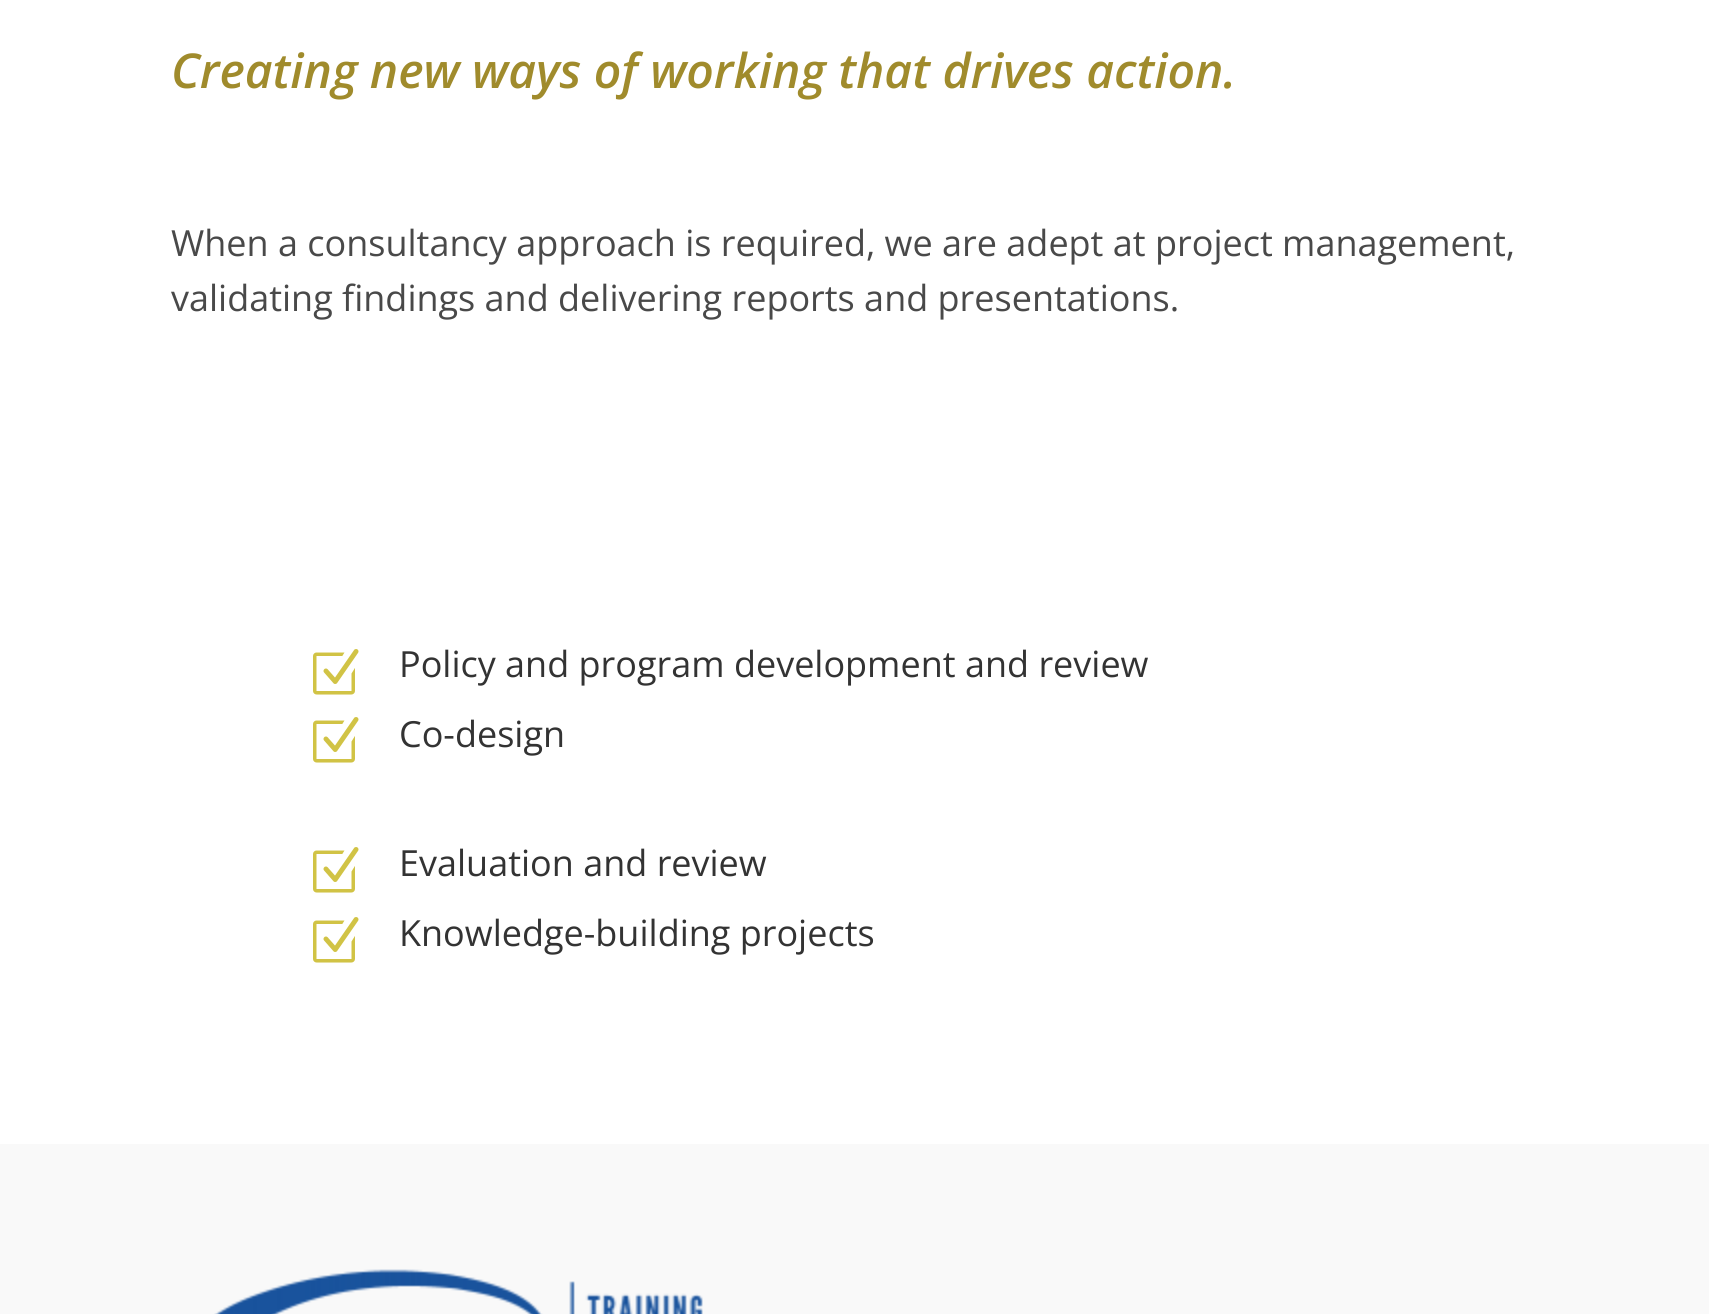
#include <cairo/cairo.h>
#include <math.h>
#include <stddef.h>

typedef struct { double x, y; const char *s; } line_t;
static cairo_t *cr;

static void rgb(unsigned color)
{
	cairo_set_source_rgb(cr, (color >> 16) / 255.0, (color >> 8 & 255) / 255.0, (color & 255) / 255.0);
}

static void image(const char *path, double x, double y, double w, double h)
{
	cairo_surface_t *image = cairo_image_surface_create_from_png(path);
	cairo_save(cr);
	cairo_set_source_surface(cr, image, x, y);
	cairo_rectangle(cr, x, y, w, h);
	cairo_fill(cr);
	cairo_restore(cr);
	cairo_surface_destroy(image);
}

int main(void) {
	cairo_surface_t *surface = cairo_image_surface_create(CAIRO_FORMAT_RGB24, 1709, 1314);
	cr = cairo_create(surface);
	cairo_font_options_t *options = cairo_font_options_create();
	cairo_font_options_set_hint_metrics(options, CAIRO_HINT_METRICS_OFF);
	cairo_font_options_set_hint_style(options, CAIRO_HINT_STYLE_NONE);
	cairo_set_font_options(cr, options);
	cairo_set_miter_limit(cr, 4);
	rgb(0xffffff);
	cairo_paint(cr);
	image("img/1.png", 313, 649, 46, 46);
	image("img/1.png", 313, 717, 46, 46);
	image("img/1.png", 313, 847, 46, 46);
	image("img/1.png", 313, 917, 46, 46);
	rgb(0xf9f9f9);
	cairo_rectangle(cr, 0, 1144, 1709, 170);
	cairo_fill(cr);
	image("img/2.png", 214, 1269, 489, 45);
	cairo_select_font_face(cr, "Open Sans SemiBold", CAIRO_FONT_SLANT_ITALIC, CAIRO_FONT_WEIGHT_NORMAL);
	cairo_set_font_size(cr, 48);
	rgb(0xa08b2c);
	cairo_move_to(cr, 171, 88);
	cairo_show_text(cr, "Creating new ways of working that drives action.");
	cairo_select_font_face(cr, "Open Sans", CAIRO_FONT_SLANT_NORMAL, CAIRO_FONT_WEIGHT_NORMAL);
	cairo_set_font_size(cr, 36);
	rgb(0x494949);
	cairo_move_to(cr, 171, 256);
	cairo_show_text(cr, "When a consultancy approach is required, we are adept at project management,");
	cairo_move_to(cr, 171, 311);
	cairo_show_text(cr, "validating findings and delivering reports and presentations.");
	rgb(0x333333);
	{
		static const line_t items[] = {
			{399, 677, "Policy and program development and review"},
			{399, 747, "Co-design"},
			{399, 876, "Evaluation and review"},
			{399, 946, "Knowledge-building projects"},
		};
		for (size_t i = 0; i < sizeof items / sizeof *items; i++) {
			cairo_move_to(cr, items[i].x, items[i].y);
			cairo_show_text(cr, items[i].s);
		}
	}
	cairo_surface_write_to_png(surface, "page.png");
	cairo_font_options_destroy(options);
	cairo_destroy(cr);
	cairo_surface_destroy(surface);
	return 0;
}
